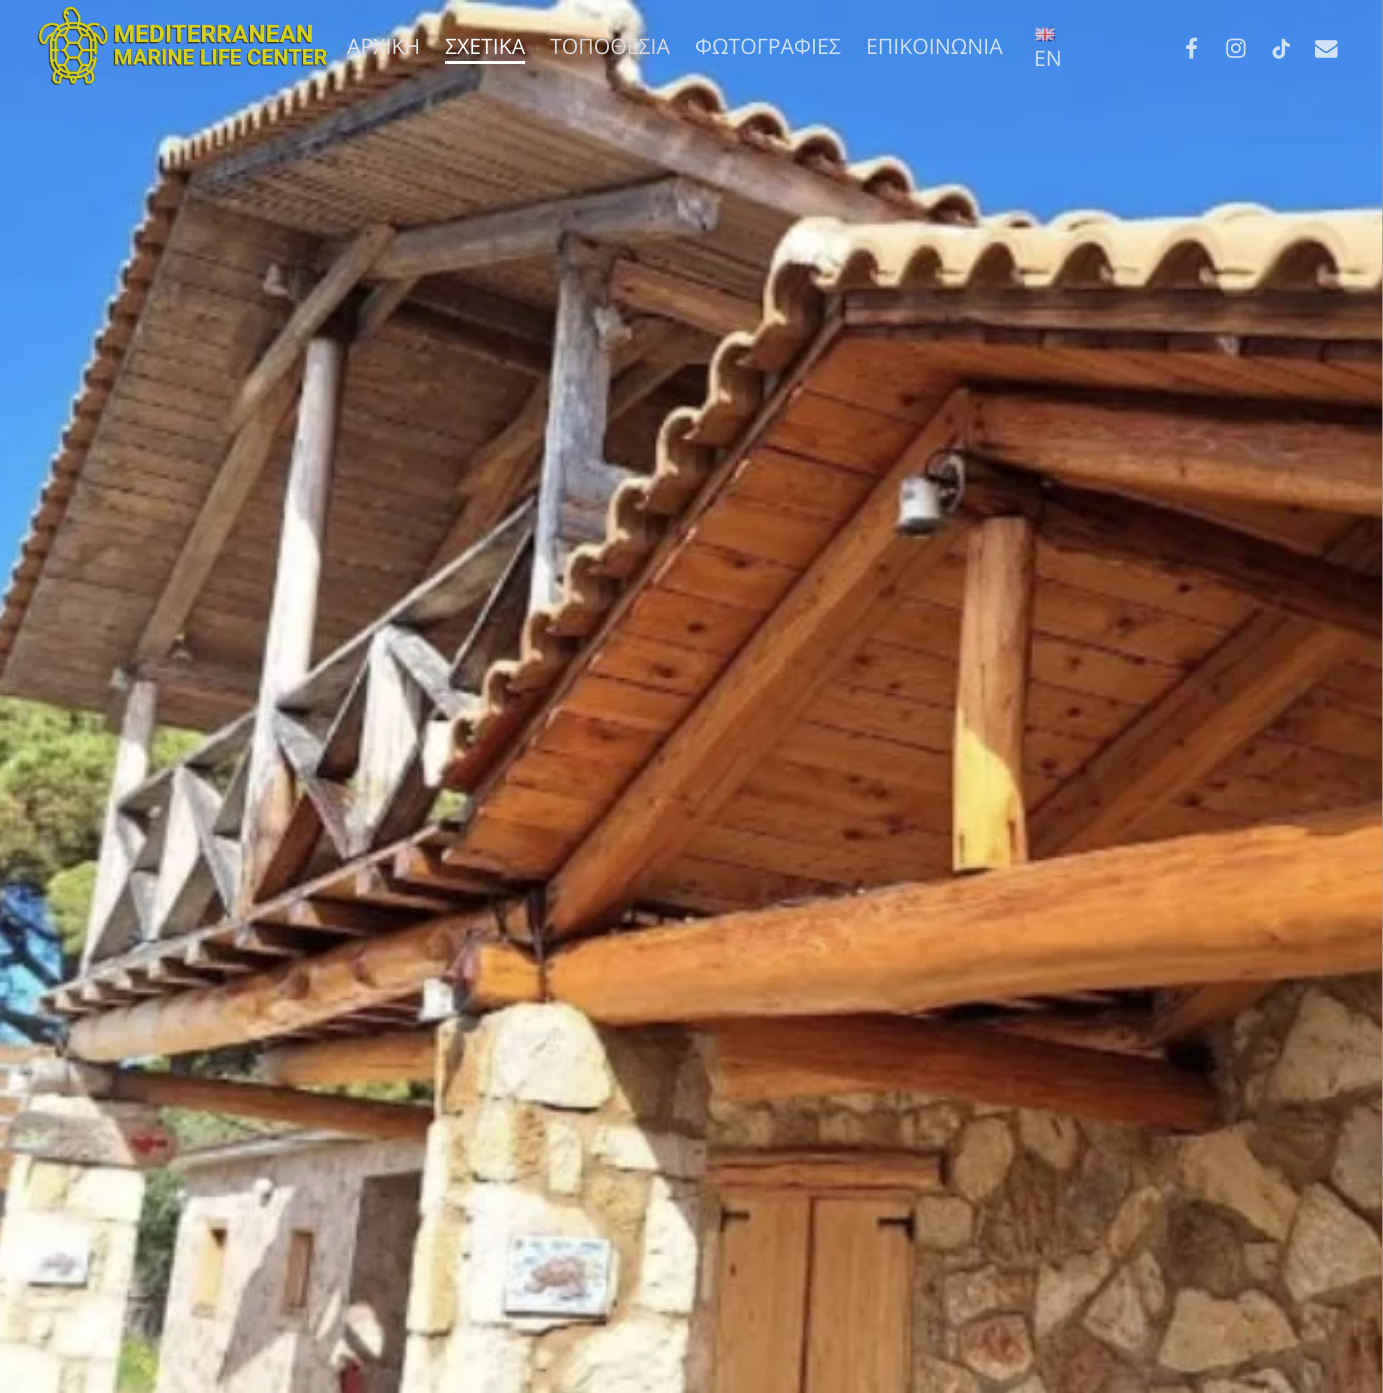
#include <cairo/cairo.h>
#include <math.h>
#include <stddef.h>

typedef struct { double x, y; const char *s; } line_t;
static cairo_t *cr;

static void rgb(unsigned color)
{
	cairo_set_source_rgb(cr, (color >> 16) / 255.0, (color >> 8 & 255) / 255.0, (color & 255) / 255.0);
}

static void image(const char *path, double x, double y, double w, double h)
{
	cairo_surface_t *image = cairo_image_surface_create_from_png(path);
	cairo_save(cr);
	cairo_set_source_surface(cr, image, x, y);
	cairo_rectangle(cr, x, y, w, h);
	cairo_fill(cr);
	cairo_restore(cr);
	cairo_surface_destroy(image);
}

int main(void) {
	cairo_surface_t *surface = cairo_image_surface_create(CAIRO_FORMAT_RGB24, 1383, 1393);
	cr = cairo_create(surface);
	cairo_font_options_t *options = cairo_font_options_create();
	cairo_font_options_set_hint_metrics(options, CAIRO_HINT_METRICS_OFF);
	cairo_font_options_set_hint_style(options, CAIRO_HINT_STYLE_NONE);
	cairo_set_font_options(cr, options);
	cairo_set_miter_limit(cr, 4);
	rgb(0x9f9f9f);
	cairo_paint(cr);
	image("img/1.png", 0, 0, 1383, 1393);
	image("img/2.png", 37, 6, 291, 80);
	rgb(0xffffff);
	cairo_rectangle(cr, 445, 61, 80, 3);
	cairo_fill(cr);
	image("img/3.png", 1034, 27, 21, 15);
	image("img/4.png", 1186, 37, 12, 22);
	image("img/5.png", 1226, 38, 20, 20);
	image("img/6.png", 1272, 38, 18, 21);
	image("img/7.png", 1315, 40, 23, 18);
	cairo_select_font_face(cr, "Open Sans", CAIRO_FONT_SLANT_NORMAL, CAIRO_FONT_WEIGHT_NORMAL);
	cairo_set_font_size(cr, 21.25);
	rgb(0xe4e5e8);
	cairo_move_to(cr, 347, 54);
	cairo_show_text(cr, "ΑΡΧΙΚΗ");
	rgb(0xffffff);
	cairo_move_to(cr, 445, 54);
	cairo_show_text(cr, "ΣΧΕΤΙΚΑ");
	rgb(0xdddbdd);
	cairo_move_to(cr, 550, 54);
	cairo_show_text(cr, "ΤΟΠΟΘΕΣΙΑ");
	rgb(0xd0e2f9);
	{
		static const line_t items[] = {
			{695, 54, "ΦΩΤΟΓΡΑΦΙΕΣ"},
			{866, 54, "ΕΠΙΚΟΙΝΩΝΙΑ"},
			{1034, 66, "EN"},
		};
		for (size_t i = 0; i < sizeof items / sizeof *items; i++) {
			cairo_move_to(cr, items[i].x, items[i].y);
			cairo_show_text(cr, items[i].s);
		}
	}
	cairo_surface_write_to_png(surface, "page.png");
	cairo_font_options_destroy(options);
	cairo_destroy(cr);
	cairo_surface_destroy(surface);
	return 0;
}
